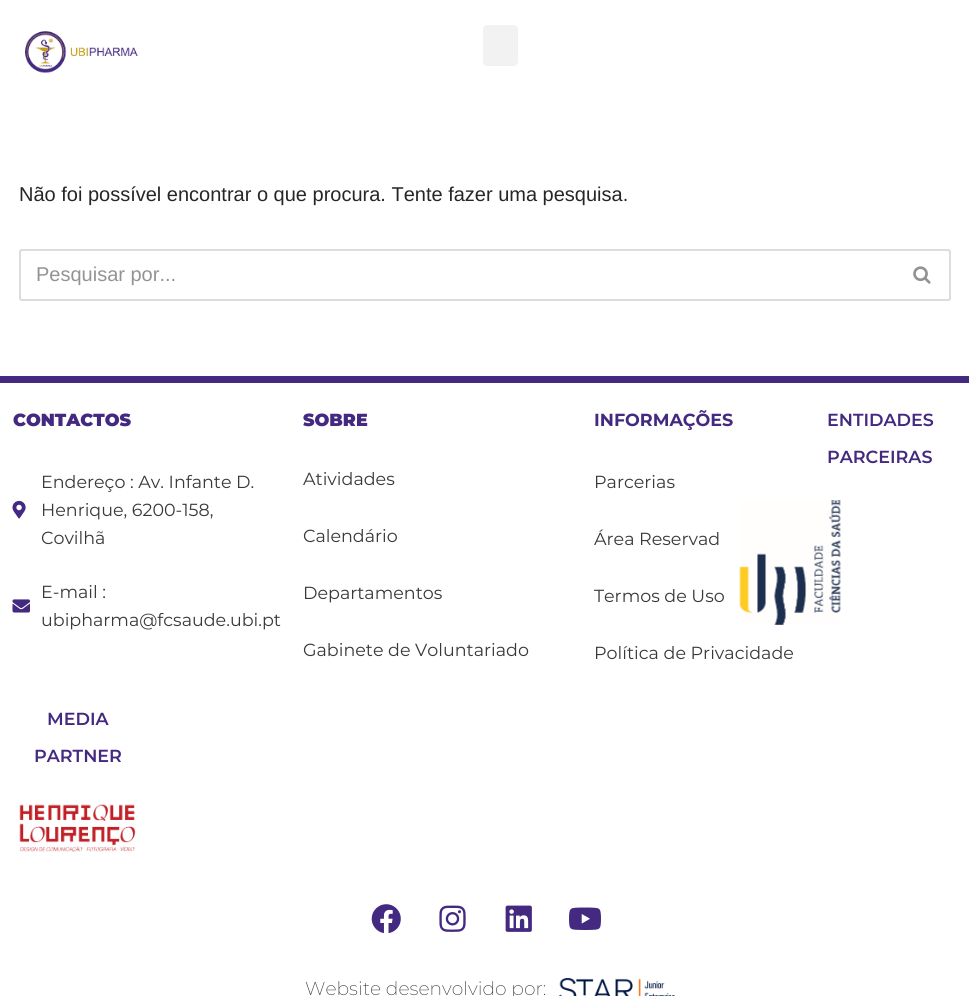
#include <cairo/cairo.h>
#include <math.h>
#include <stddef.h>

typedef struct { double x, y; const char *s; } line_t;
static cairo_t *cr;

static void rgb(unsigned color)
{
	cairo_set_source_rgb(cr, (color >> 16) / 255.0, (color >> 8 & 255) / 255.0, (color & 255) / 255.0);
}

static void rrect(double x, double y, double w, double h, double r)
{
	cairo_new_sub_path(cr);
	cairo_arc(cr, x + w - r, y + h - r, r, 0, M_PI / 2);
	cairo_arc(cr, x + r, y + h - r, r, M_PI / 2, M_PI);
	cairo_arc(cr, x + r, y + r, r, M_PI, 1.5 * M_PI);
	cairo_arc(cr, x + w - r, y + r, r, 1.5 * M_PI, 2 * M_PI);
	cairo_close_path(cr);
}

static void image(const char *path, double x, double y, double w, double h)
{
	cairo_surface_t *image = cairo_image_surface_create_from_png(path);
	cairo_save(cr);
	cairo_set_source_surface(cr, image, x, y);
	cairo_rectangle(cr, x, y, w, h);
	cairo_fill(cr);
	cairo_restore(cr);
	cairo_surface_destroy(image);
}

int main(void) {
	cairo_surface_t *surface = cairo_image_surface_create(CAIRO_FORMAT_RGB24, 969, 996);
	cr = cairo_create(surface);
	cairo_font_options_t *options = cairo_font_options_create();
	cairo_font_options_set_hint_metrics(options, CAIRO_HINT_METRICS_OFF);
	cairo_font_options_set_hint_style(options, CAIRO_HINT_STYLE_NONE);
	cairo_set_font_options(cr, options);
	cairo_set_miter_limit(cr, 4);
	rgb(0xffffff);
	cairo_paint(cr);
	image("img/1.png", 25, 31, 113, 42);
	rgb(0xf2f2f2);
	rrect(483, 25, 35, 41, 4);
	cairo_fill(cr);
	rgb(0xdddddd);
	cairo_set_fill_rule(cr, CAIRO_FILL_RULE_EVEN_ODD);
	cairo_new_path(cr);
	cairo_move_to(cr, 22, 249);
	cairo_line_to(cr, 895, 249);
	cairo_line_to(cr, 895, 301);
	cairo_line_to(cr, 22, 301);
	cairo_curve_to(cr, 20, 301, 19, 300, 19, 298);
	cairo_line_to(cr, 19, 252);
	cairo_curve_to(cr, 19, 250, 20, 249, 22, 249);
	cairo_close_path(cr);
	cairo_move_to(cr, 22, 251);
	cairo_line_to(cr, 895, 251);
	cairo_line_to(cr, 895, 299);
	cairo_line_to(cr, 22, 299);
	cairo_curve_to(cr, 22, 299, 21, 298, 21, 298);
	cairo_line_to(cr, 21, 252);
	cairo_curve_to(cr, 21, 252, 22, 251, 22, 251);
	cairo_close_path(cr);
	cairo_fill(cr);
	cairo_new_path(cr);
	cairo_move_to(cr, 895, 249);
	cairo_line_to(cr, 948, 249);
	cairo_curve_to(cr, 950, 249, 951, 250, 951, 252);
	cairo_line_to(cr, 951, 298);
	cairo_curve_to(cr, 951, 300, 950, 301, 948, 301);
	cairo_line_to(cr, 895, 301);
	cairo_close_path(cr);
	cairo_move_to(cr, 895, 251);
	cairo_line_to(cr, 948, 251);
	cairo_curve_to(cr, 948, 251, 949, 252, 949, 252);
	cairo_line_to(cr, 949, 298);
	cairo_curve_to(cr, 949, 298, 948, 299, 948, 299);
	cairo_line_to(cr, 895, 299);
	cairo_close_path(cr);
	cairo_fill(cr);
	image("img/2.png", 913, 266, 18, 18);
	rgb(0x442980);
	cairo_rectangle(cr, 0, 376, 969, 7);
	cairo_fill(cr);
	image("img/3.png", 12, 500, 14, 19);
	image("img/4.png", 12, 599, 18, 14);
	image("img/5.png", 739, 500, 102, 125);
	image("img/6.png", 19, 804, 117, 48);
	image("img/7.png", 371, 904, 30, 30);
	image("img/8.png", 439, 905, 27, 27);
	image("img/9.png", 505, 905, 27, 27);
	image("img/10.png", 569, 907, 32, 23);
	image("img/11.png", 559, 978, 116, 18);
	cairo_select_font_face(cr, "Liberation Sans", CAIRO_FONT_SLANT_NORMAL, CAIRO_FONT_WEIGHT_NORMAL);
	cairo_set_font_size(cr, 20);
	rgb(0x272626);
	cairo_move_to(cr, 19, 201);
	cairo_show_text(cr, "Não foi possível encontrar o que procura. Tente fazer uma pesquisa.");
	rgb(0x939393);
	cairo_move_to(cr, 36, 281);
	cairo_show_text(cr, "Pesquisar por...");
	cairo_select_font_face(cr, "Montserrat Black", CAIRO_FONT_SLANT_NORMAL, CAIRO_FONT_WEIGHT_NORMAL);
	cairo_set_font_size(cr, 17.5);
	rgb(0x442980);
	cairo_move_to(cr, 13, 426);
	cairo_show_text(cr, "CONTACTOS");
	cairo_select_font_face(cr, "Montserrat", CAIRO_FONT_SLANT_NORMAL, CAIRO_FONT_WEIGHT_NORMAL);
	rgb(0x393939);
	{
		static const line_t items[] = {
			{41, 488, "Endereço : Av. Infante D."},
			{41, 516, "Henrique, 6200-158,"},
			{41, 544, "Covilhã"},
			{41, 598, "E-mail :"},
			{41, 626, "ubipharma@fcsaude.ubi.pt"},
		};
		for (size_t i = 0; i < sizeof items / sizeof *items; i++) {
			cairo_move_to(cr, items[i].x, items[i].y);
			cairo_show_text(cr, items[i].s);
		}
	}
	cairo_select_font_face(cr, "Montserrat Black", CAIRO_FONT_SLANT_NORMAL, CAIRO_FONT_WEIGHT_NORMAL);
	rgb(0x442980);
	cairo_move_to(cr, 303, 426);
	cairo_show_text(cr, "SOBRE");
	cairo_select_font_face(cr, "Montserrat", CAIRO_FONT_SLANT_NORMAL, CAIRO_FONT_WEIGHT_NORMAL);
	rgb(0x393939);
	{
		static const line_t items[] = {
			{303, 485, "Atividades"},
			{303, 542, "Calendário"},
			{303, 599, "Departamentos"},
			{303, 656, "Gabinete de Voluntariado"},
		};
		for (size_t i = 0; i < sizeof items / sizeof *items; i++) {
			cairo_move_to(cr, items[i].x, items[i].y);
			cairo_show_text(cr, items[i].s);
		}
	}
	cairo_select_font_face(cr, "Montserrat", CAIRO_FONT_SLANT_NORMAL, CAIRO_FONT_WEIGHT_BOLD);
	rgb(0x442980);
	cairo_move_to(cr, 594, 426);
	cairo_show_text(cr, "INFORMAÇÕES");
	cairo_select_font_face(cr, "Montserrat", CAIRO_FONT_SLANT_NORMAL, CAIRO_FONT_WEIGHT_NORMAL);
	rgb(0x393939);
	{
		static const line_t items[] = {
			{594, 488, "Parcerias"},
			{594, 545, "Área Reservad"},
			{594, 602, "Termos de Uso"},
			{594, 659, "Política de Privacidade"},
		};
		for (size_t i = 0; i < sizeof items / sizeof *items; i++) {
			cairo_move_to(cr, items[i].x, items[i].y);
			cairo_show_text(cr, items[i].s);
		}
	}
	cairo_select_font_face(cr, "Montserrat SemiBold", CAIRO_FONT_SLANT_NORMAL, CAIRO_FONT_WEIGHT_NORMAL);
	rgb(0x442980);
	cairo_move_to(cr, 827, 426);
	cairo_show_text(cr, "ENTIDADES");
	cairo_move_to(cr, 827, 463);
	cairo_show_text(cr, "PARCEIRAS");
	rgb(0xffffff);
	cairo_rectangle(cr, 724, 595, 1, 4);
	cairo_fill(cr);
	rgb(0x442980);
	cairo_move_to(cr, 47, 725);
	cairo_show_text(cr, "MEDIA");
	cairo_move_to(cr, 34, 762);
	cairo_show_text(cr, "PARTNER");
	cairo_select_font_face(cr, "Montserrat ExtraLight", CAIRO_FONT_SLANT_NORMAL, CAIRO_FONT_WEIGHT_NORMAL);
	cairo_set_font_size(cr, 18.75);
	rgb(0x393939);
	cairo_move_to(cr, 305, 995);
	cairo_show_text(cr, "Website desenvolvido por:");
	cairo_surface_write_to_png(surface, "page.png");
	cairo_font_options_destroy(options);
	cairo_destroy(cr);
	cairo_surface_destroy(surface);
	return 0;
}
